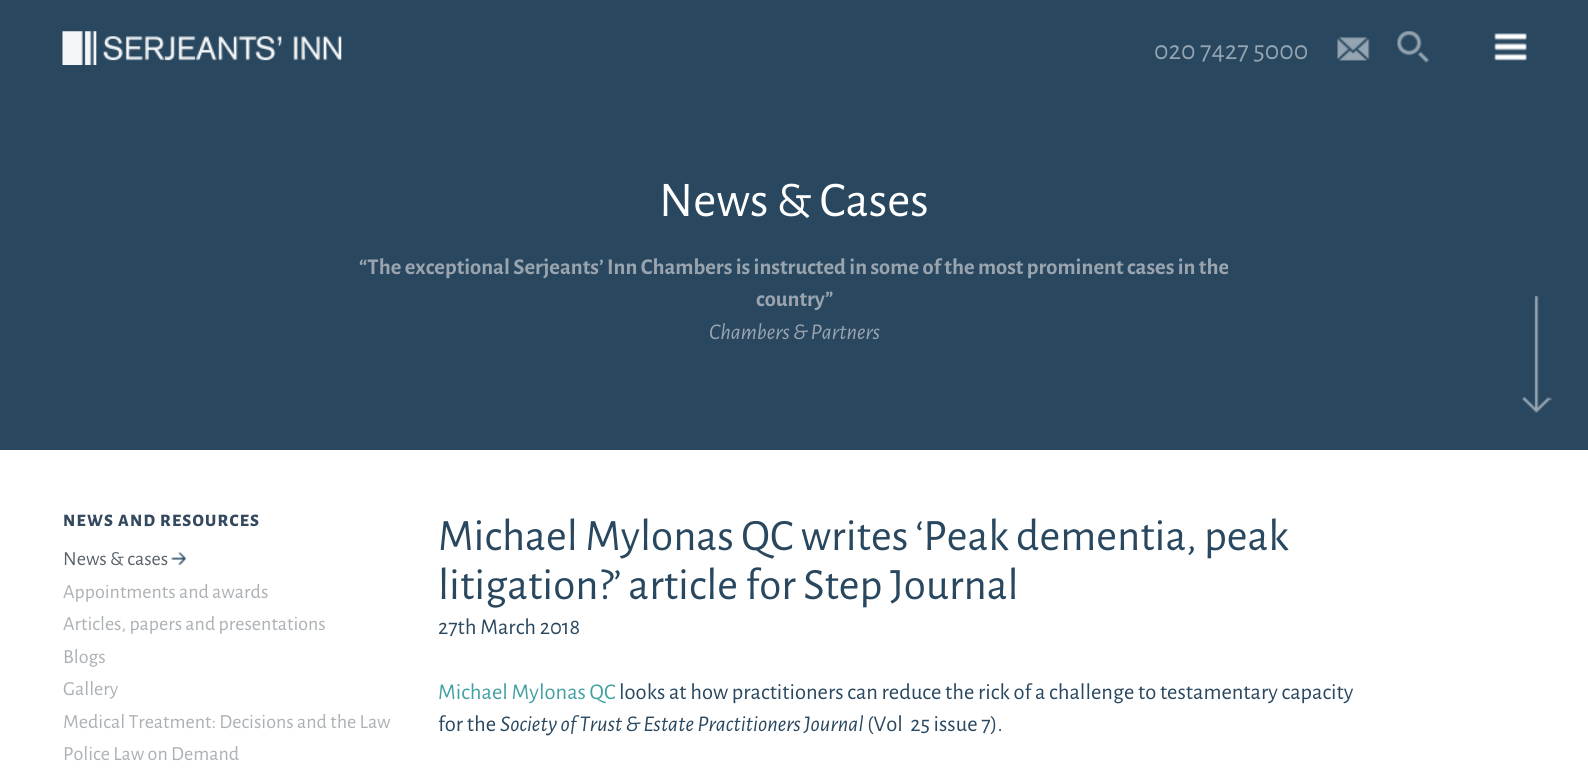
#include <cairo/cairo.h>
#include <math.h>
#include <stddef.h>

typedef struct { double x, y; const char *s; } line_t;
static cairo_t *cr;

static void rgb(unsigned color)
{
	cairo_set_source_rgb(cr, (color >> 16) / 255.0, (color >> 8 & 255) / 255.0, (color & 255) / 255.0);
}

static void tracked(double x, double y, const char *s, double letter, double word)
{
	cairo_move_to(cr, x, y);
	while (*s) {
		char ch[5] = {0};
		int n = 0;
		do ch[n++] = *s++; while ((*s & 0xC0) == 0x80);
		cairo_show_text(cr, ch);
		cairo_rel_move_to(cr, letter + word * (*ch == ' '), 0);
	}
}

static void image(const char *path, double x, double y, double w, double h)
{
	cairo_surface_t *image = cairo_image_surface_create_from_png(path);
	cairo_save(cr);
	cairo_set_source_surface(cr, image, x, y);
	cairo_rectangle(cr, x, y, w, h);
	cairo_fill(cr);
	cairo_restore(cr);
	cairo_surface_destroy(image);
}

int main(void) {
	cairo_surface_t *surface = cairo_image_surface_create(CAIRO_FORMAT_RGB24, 1588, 770);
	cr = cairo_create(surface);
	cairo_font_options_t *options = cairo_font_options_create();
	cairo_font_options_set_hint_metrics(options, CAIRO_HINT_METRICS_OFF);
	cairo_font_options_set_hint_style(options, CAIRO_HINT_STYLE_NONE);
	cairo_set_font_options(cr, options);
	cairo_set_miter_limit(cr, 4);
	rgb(0xffffff);
	cairo_paint(cr);
	rgb(0x294860);
	cairo_rectangle(cr, 0, 0, 1588, 450);
	cairo_fill(cr);
	image("img/1.png", 62, 31, 280, 34);
	image("img/2.png", 1337, 37, 33, 24);
	image("img/3.png", 1397, 31, 33, 32);
	image("img/4.png", 1494, 33, 33, 28);
	image("img/5.png", 1522, 296, 30, 117);
	image("img/6.png", 171, 552, 16, 14);
	cairo_select_font_face(cr, "Alegreya Sans", CAIRO_FONT_SLANT_NORMAL, CAIRO_FONT_WEIGHT_NORMAL);
	cairo_set_font_size(cr, 27.5);
	rgb(0x94a4b0);
	cairo_move_to(cr, 1154, 59);
	cairo_show_text(cr, "020 7427 5000");
	cairo_set_font_size(cr, 50);
	rgb(0xffffff);
	cairo_move_to(cr, 659, 216);
	cairo_show_text(cr, "News & Cases");
	cairo_select_font_face(cr, "Alegreya Sans", CAIRO_FONT_SLANT_NORMAL, CAIRO_FONT_WEIGHT_BOLD);
	cairo_set_font_size(cr, 22.5);
	rgb(0x9aa4ae);
	cairo_move_to(cr, 359, 274);
	cairo_show_text(cr, "“The exceptional Serjeants’ Inn Chambers is instructed in some of the most prominent cases in the");
	cairo_move_to(cr, 756, 306);
	cairo_show_text(cr, "country”");
	cairo_select_font_face(cr, "Alegreya Sans", CAIRO_FONT_SLANT_ITALIC, CAIRO_FONT_WEIGHT_NORMAL);
	cairo_move_to(cr, 709, 339);
	cairo_show_text(cr, "Chambers & Partners");
	cairo_select_font_face(cr, "Alegreya Sans ExtraBold", CAIRO_FONT_SLANT_NORMAL, CAIRO_FONT_WEIGHT_NORMAL);
	cairo_set_font_size(cr, 17.5);
	rgb(0x34495e);
	tracked(63, 526, "NEWS AND RESOURCES", 1.25, 0);
	cairo_select_font_face(cr, "Alegreya Sans", CAIRO_FONT_SLANT_NORMAL, CAIRO_FONT_WEIGHT_NORMAL);
	cairo_set_font_size(cr, 20);
	rgb(0x59626b);
	cairo_move_to(cr, 63, 565);
	cairo_show_text(cr, "News & cases");
	rgb(0xacb1b5);
	{
		static const line_t items[] = {
			{63, 598, "Appointments and awards"},
			{63, 630, "Articles, papers and presentations"},
			{63, 663, "Blogs"},
			{63, 695, "Gallery"},
			{63, 728, "Medical Treatment: Decisions and the Law"},
			{63, 760, "Police Law on Demand"},
		};
		for (size_t i = 0; i < sizeof items / sizeof *items; i++) {
			cairo_move_to(cr, items[i].x, items[i].y);
			cairo_show_text(cr, items[i].s);
		}
	}
	cairo_set_font_size(cr, 45);
	rgb(0x294860);
	cairo_move_to(cr, 438, 550);
	cairo_show_text(cr, "Michael Mylonas QC writes ‘Peak dementia, peak");
	cairo_move_to(cr, 438, 599);
	cairo_show_text(cr, "litigation?’ article for Step Journal");
	cairo_set_font_size(cr, 22.5);
	cairo_move_to(cr, 438, 634);
	cairo_show_text(cr, "27th March 2018");
	rgb(0x44a1a3);
	cairo_move_to(cr, 438, 699);
	cairo_show_text(cr, "Michael Mylonas QC");
	rgb(0x294860);
	cairo_move_to(cr, 619, 699);
	cairo_show_text(cr, "looks at how practitioners can reduce the rick of a challenge to testamentary capacity");
	cairo_move_to(cr, 438, 731);
	cairo_show_text(cr, "for the");
	cairo_select_font_face(cr, "Alegreya Sans", CAIRO_FONT_SLANT_ITALIC, CAIRO_FONT_WEIGHT_NORMAL);
	cairo_move_to(cr, 500, 731);
	cairo_show_text(cr, "Society of Trust & Estate Practitioners Journal");
	cairo_select_font_face(cr, "Alegreya Sans", CAIRO_FONT_SLANT_NORMAL, CAIRO_FONT_WEIGHT_NORMAL);
	cairo_move_to(cr, 867, 731);
	cairo_show_text(cr, "(Vol  25 issue 7).");
	cairo_surface_write_to_png(surface, "page.png");
	cairo_font_options_destroy(options);
	cairo_destroy(cr);
	cairo_surface_destroy(surface);
	return 0;
}
